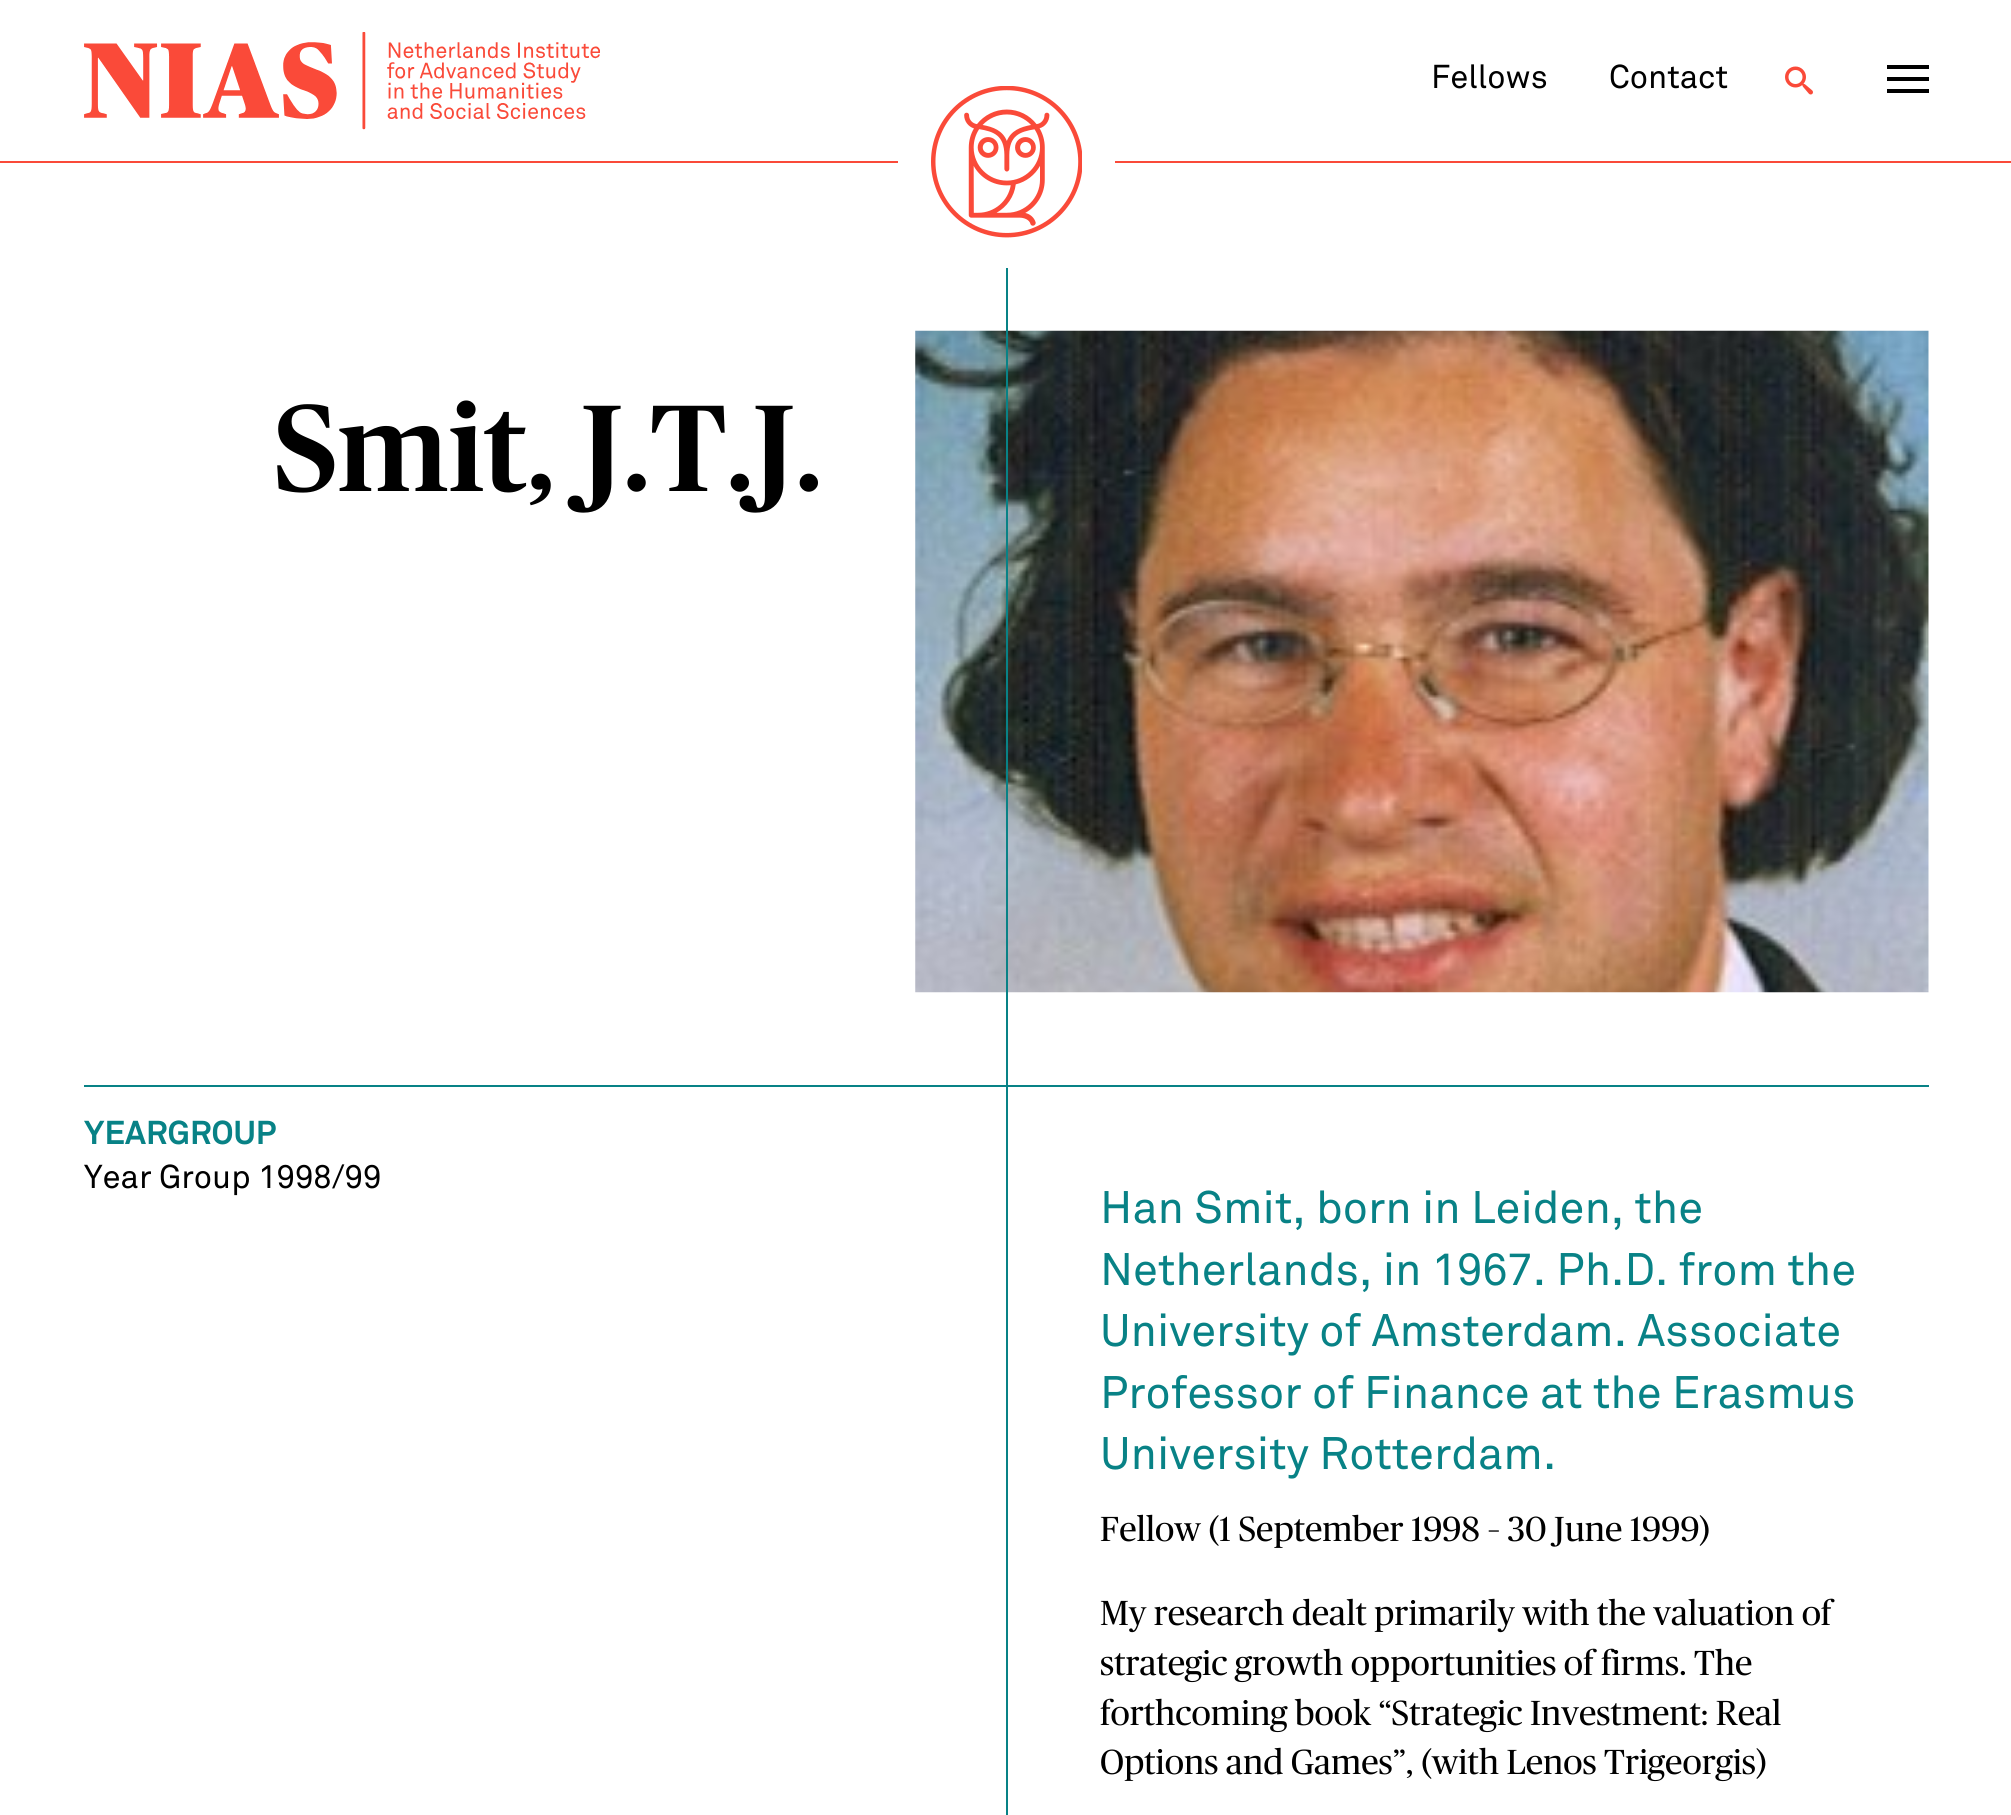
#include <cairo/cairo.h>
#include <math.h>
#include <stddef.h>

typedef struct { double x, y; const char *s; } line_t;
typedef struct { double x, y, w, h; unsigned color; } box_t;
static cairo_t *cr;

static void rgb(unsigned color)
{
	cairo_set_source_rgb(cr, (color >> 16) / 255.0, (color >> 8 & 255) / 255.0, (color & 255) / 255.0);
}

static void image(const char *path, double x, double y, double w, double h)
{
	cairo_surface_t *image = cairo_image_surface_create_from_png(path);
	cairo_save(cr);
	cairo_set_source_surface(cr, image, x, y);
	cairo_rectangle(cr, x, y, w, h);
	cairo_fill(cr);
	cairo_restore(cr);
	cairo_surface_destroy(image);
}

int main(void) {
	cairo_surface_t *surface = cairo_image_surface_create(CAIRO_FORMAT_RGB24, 2011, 1815);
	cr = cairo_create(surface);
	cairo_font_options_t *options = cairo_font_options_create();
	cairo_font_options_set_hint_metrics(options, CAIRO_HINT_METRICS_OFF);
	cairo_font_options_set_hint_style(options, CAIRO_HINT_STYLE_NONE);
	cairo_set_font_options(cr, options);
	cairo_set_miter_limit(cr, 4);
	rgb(0xffffff);
	cairo_paint(cr);
	image("img/1.png", 84, 32, 516, 98);
	image("img/2.png", 1785, 66, 28, 29);
	{
		static const box_t items[] = {
			{1887, 65, 42, 4, 0x000000},
			{1887, 77, 42, 4, 0x000000},
			{1887, 89, 42, 4, 0x000000},
			{0, 161, 898, 2, 0xfa4a39},
		};
		for (size_t i = 0; i < sizeof items / sizeof *items; i++) {
			rgb(items[i].color);
			cairo_rectangle(cr, items[i].x, items[i].y, items[i].w, items[i].h);
			cairo_fill(cr);
		}
	}
	image("img/3.png", 931, 86, 151, 152);
	cairo_rectangle(cr, 1115, 161, 896, 2);
	cairo_fill(cr);
	image("img/4.png", 915, 330, 1014, 663);
	{
		static const box_t items[] = {
			{1006, 268, 2, 817, 0x088286},
			{84, 1085, 1845, 2, 0x088286},
			{1006, 1087, 2, 728, 0x088286},
		};
		for (size_t i = 0; i < sizeof items / sizeof *items; i++) {
			rgb(items[i].color);
			cairo_rectangle(cr, items[i].x, items[i].y, items[i].w, items[i].h);
			cairo_fill(cr);
		}
	}
	cairo_select_font_face(cr, "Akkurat", CAIRO_FONT_SLANT_NORMAL, CAIRO_FONT_WEIGHT_NORMAL);
	cairo_set_font_size(cr, 32.75);
	rgb(0x000000);
	cairo_move_to(cr, 1431, 88);
	cairo_show_text(cr, "Fellows");
	cairo_move_to(cr, 1609, 88);
	cairo_show_text(cr, "Contact");
	cairo_select_font_face(cr, "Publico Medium", CAIRO_FONT_SLANT_NORMAL, CAIRO_FONT_WEIGHT_NORMAL);
	cairo_set_font_size(cr, 123);
	cairo_move_to(cr, 274, 491);
	cairo_show_text(cr, "Smit, J.T.J.");
	cairo_select_font_face(cr, "Akkurat", CAIRO_FONT_SLANT_NORMAL, CAIRO_FONT_WEIGHT_BOLD);
	cairo_set_font_size(cr, 32.75);
	rgb(0x088286);
	cairo_move_to(cr, 84, 1144);
	cairo_show_text(cr, "YEARGROUP");
	cairo_select_font_face(cr, "Akkurat", CAIRO_FONT_SLANT_NORMAL, CAIRO_FONT_WEIGHT_NORMAL);
	rgb(0x000000);
	cairo_move_to(cr, 84, 1188);
	cairo_show_text(cr, "Year Group 1998/99");
	cairo_set_font_size(cr, 45.1);
	rgb(0x088286);
	{
		static const line_t items[] = {
			{1100, 1223, "Han Smit, born in Leiden, the"},
			{1100, 1285, "Netherlands, in 1967. Ph.D. from the"},
			{1100, 1346, "University of Amsterdam. Associate"},
			{1100, 1408, "Professor of Finance at the Erasmus"},
			{1100, 1469, "University Rotterdam."},
		};
		for (size_t i = 0; i < sizeof items / sizeof *items; i++) {
			cairo_move_to(cr, items[i].x, items[i].y);
			cairo_show_text(cr, items[i].s);
		}
	}
	cairo_select_font_face(cr, "Publico", CAIRO_FONT_SLANT_NORMAL, CAIRO_FONT_WEIGHT_NORMAL);
	cairo_set_font_size(cr, 34.8);
	rgb(0x000000);
	{
		static const line_t items[] = {
			{1100, 1541, "Fellow (1 September 1998 – 30 June 1999)"},
			{1100, 1625, "My research dealt primarily with the valuation of"},
			{1100, 1675, "strategic growth opportunities of firms. The"},
			{1100, 1725, "forthcoming book “Strategic Investment: Real"},
			{1100, 1774, "Options and Games”, (with Lenos Trigeorgis)"},
		};
		for (size_t i = 0; i < sizeof items / sizeof *items; i++) {
			cairo_move_to(cr, items[i].x, items[i].y);
			cairo_show_text(cr, items[i].s);
		}
	}
	cairo_surface_write_to_png(surface, "page.png");
	cairo_font_options_destroy(options);
	cairo_destroy(cr);
	cairo_surface_destroy(surface);
	return 0;
}
